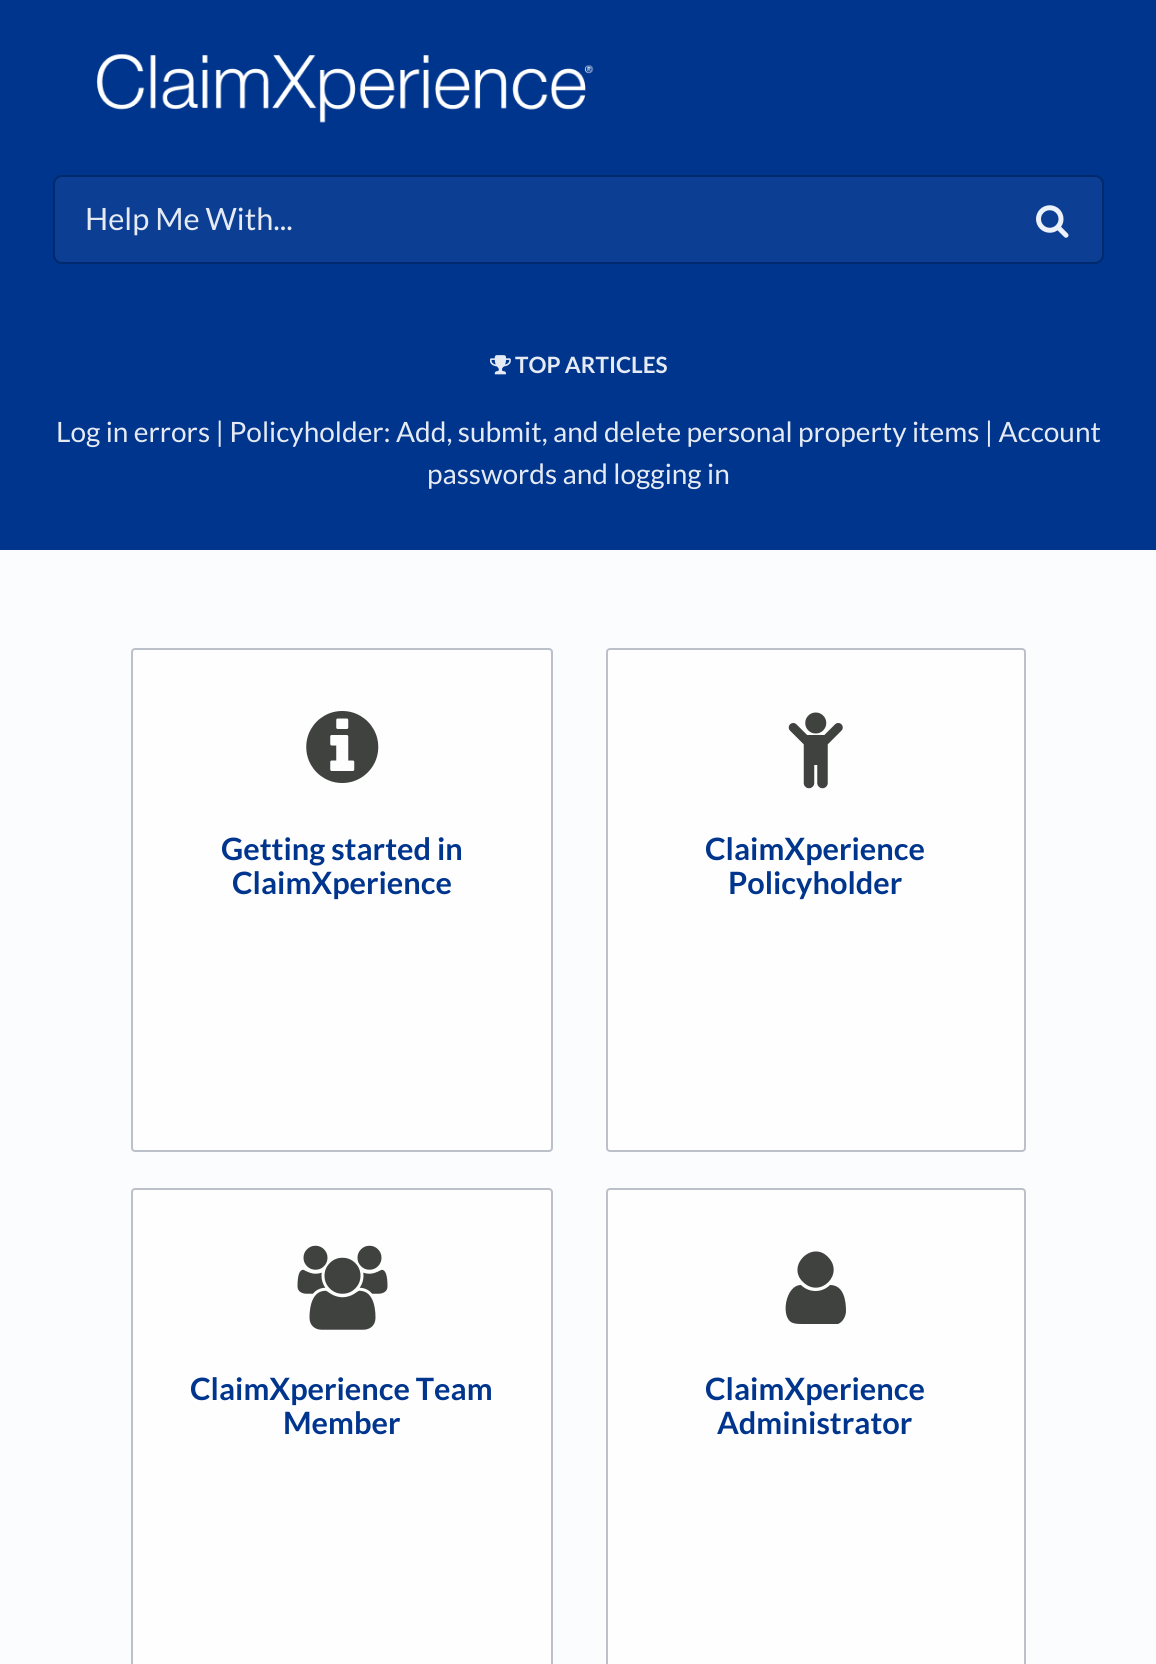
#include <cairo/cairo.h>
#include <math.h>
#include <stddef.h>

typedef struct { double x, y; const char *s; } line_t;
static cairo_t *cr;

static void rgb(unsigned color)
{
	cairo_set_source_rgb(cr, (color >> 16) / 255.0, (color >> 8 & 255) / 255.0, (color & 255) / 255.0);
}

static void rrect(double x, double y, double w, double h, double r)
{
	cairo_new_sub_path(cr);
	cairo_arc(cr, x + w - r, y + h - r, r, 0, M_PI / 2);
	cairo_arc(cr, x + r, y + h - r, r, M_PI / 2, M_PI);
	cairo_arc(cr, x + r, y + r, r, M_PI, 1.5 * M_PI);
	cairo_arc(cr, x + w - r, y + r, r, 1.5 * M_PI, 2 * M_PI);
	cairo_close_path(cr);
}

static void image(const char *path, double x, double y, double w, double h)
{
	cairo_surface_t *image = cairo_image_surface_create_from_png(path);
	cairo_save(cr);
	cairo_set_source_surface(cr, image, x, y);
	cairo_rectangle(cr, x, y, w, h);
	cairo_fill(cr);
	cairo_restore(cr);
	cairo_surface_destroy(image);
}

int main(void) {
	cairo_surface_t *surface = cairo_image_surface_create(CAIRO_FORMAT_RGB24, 1156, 1664);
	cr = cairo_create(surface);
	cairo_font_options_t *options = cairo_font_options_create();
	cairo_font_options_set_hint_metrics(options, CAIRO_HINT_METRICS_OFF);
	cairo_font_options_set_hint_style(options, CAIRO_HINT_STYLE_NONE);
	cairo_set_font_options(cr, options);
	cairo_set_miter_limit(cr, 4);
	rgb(0xfbfcfe);
	cairo_paint(cr);
	rgb(0x00358e);
	cairo_rectangle(cr, 0, 0, 1156, 550);
	cairo_fill(cr);
	image("img/1.png", 96, 54, 498, 69);
	rgb(0x0c3f93);
	rrect(54, 176, 1049, 87, 8);
	cairo_fill_preserve(cr);
	rgb(0x00296e);
	cairo_stroke(cr);
	image("img/2.png", 1036, 205, 33, 33);
	image("img/3.png", 490, 355, 21, 20);
	rgb(0xfefeff);
	rrect(132, 649, 420, 502, 3);
	cairo_fill_preserve(cr);
	rgb(0xbcc0c8);
	cairo_stroke(cr);
	image("img/4.png", 306, 711, 73, 72);
	rgb(0xfefeff);
	rrect(607, 649, 418, 502, 3);
	cairo_fill_preserve(cr);
	rgb(0xbcc0c8);
	cairo_stroke(cr);
	image("img/5.png", 788, 712, 55, 77);
	rgb(0xfefeff);
	rrect(132, 1189, 420, 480, 3);
	cairo_fill_preserve(cr);
	rgb(0xbcc0c8);
	cairo_stroke(cr);
	image("img/6.png", 297, 1245, 91, 85);
	rgb(0xfefeff);
	rrect(607, 1189, 418, 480, 3);
	cairo_fill_preserve(cr);
	rgb(0xbcc0c8);
	cairo_stroke(cr);
	rgb(0x404240);
	cairo_new_path(cr);
	cairo_move_to(cr, 846, 1311);
	cairo_curve_to(cr, 846, 1316, 843, 1322, 838, 1324);
	cairo_line_to(cr, 802, 1324);
	cairo_curve_to(cr, 800, 1324, 796, 1324, 793, 1323);
	cairo_curve_to(cr, 780, 1319, 785, 1285, 801, 1285);
	cairo_curve_to(cr, 809, 1293, 822, 1293, 830, 1285);
	cairo_curve_to(cr, 844, 1285, 846, 1301, 846, 1311);
	cairo_close_path(cr);
	cairo_move_to(cr, 828, 1257);
	cairo_curve_to(cr, 845, 1274, 820, 1299, 803, 1282);
	cairo_curve_to(cr, 786, 1266, 812, 1240, 828, 1257);
	cairo_close_path(cr);
	cairo_fill(cr);
	cairo_select_font_face(cr, "Lato", CAIRO_FONT_SLANT_NORMAL, CAIRO_FONT_WEIGHT_NORMAL);
	cairo_set_font_size(cr, 30.75);
	rgb(0xe5eaf3);
	cairo_move_to(cr, 85, 230);
	cairo_show_text(cr, "Help Me With...");
	cairo_select_font_face(cr, "Lato", CAIRO_FONT_SLANT_NORMAL, CAIRO_FONT_WEIGHT_BOLD);
	cairo_set_font_size(cr, 22.5);
	cairo_move_to(cr, 515, 373);
	cairo_show_text(cr, "TOP ARTICLES");
	cairo_select_font_face(cr, "Lato", CAIRO_FONT_SLANT_NORMAL, CAIRO_FONT_WEIGHT_NORMAL);
	cairo_set_font_size(cr, 28);
	cairo_move_to(cr, 56, 442);
	cairo_show_text(cr, "Log in errors | Policyholder: Add, submit, and delete personal property items | Account");
	cairo_move_to(cr, 427, 484);
	cairo_show_text(cr, "passwords and logging in");
	cairo_select_font_face(cr, "Lato", CAIRO_FONT_SLANT_NORMAL, CAIRO_FONT_WEIGHT_BOLD);
	cairo_set_font_size(cr, 30.75);
	rgb(0x00358e);
	{
		static const line_t items[] = {
			{221, 860, "Getting started in"},
			{232, 894, "ClaimXperience"},
			{705, 860, "ClaimXperience"},
			{728, 894, "Policyholder"},
			{190, 1400, "ClaimXperience Team"},
			{283, 1434, "Member"},
			{705, 1400, "ClaimXperience"},
			{717, 1434, "Administrator"},
		};
		for (size_t i = 0; i < sizeof items / sizeof *items; i++) {
			cairo_move_to(cr, items[i].x, items[i].y);
			cairo_show_text(cr, items[i].s);
		}
	}
	cairo_surface_write_to_png(surface, "page.png");
	cairo_font_options_destroy(options);
	cairo_destroy(cr);
	cairo_surface_destroy(surface);
	return 0;
}
